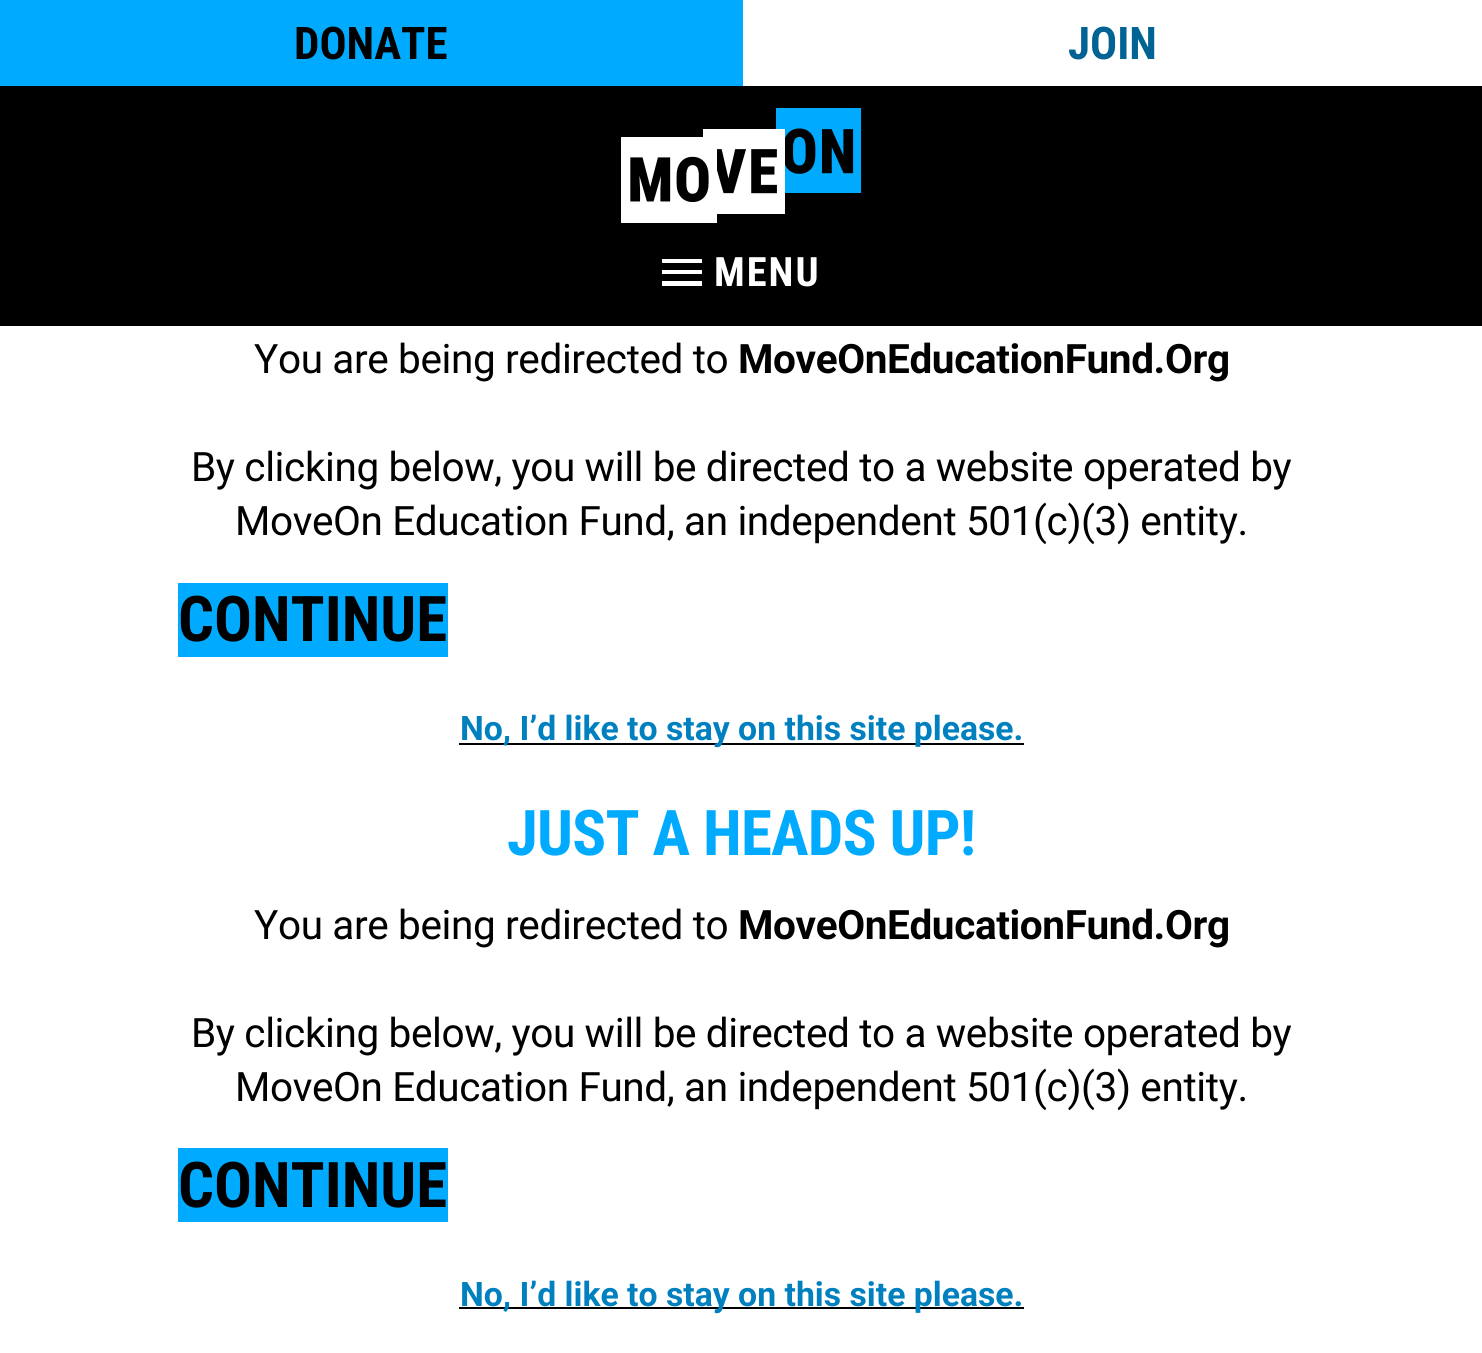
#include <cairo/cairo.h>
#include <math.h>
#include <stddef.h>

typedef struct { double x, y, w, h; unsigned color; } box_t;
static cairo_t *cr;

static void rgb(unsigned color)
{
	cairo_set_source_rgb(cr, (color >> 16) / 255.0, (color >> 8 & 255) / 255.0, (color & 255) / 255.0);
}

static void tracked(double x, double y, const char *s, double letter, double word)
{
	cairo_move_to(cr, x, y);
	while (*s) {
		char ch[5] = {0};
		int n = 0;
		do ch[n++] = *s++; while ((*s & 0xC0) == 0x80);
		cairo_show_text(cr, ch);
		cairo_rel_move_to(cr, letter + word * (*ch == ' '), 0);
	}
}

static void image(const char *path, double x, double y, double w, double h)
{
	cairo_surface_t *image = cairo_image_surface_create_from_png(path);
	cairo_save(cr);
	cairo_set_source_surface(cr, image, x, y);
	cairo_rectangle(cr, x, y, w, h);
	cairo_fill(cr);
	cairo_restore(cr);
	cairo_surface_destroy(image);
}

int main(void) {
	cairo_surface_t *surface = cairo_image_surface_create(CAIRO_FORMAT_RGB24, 1482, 1353);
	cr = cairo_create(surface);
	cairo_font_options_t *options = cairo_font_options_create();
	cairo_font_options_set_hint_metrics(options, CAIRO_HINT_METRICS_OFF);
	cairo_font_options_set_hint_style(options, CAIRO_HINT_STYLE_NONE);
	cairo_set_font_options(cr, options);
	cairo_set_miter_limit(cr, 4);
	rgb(0xffffff);
	cairo_paint(cr);
	rgb(0x000000);
	cairo_rectangle(cr, 0, 86, 1482, 240);
	cairo_fill(cr);
	rgb(0x00abff);
	cairo_rectangle(cr, 0, 0, 743, 86);
	cairo_fill(cr);
	image("img/1.png", 621, 108, 240, 115);
	rgb(0xffffff);
	cairo_new_path(cr);
	cairo_move_to(cr, 662, 286);
	cairo_line_to(cr, 702, 286);
	cairo_line_to(cr, 702, 281);
	cairo_line_to(cr, 662, 281);
	cairo_close_path(cr);
	cairo_move_to(cr, 662, 274);
	cairo_line_to(cr, 702, 274);
	cairo_line_to(cr, 702, 270);
	cairo_line_to(cr, 662, 270);
	cairo_close_path(cr);
	cairo_move_to(cr, 662, 259);
	cairo_line_to(cr, 662, 263);
	cairo_line_to(cr, 702, 263);
	cairo_line_to(cr, 702, 259);
	cairo_close_path(cr);
	cairo_fill(cr);
	{
		static const box_t items[] = {
			{178, 583, 270, 74, 0x00abff},
			{459, 743, 565, 2, 0x000000},
			{178, 1148, 270, 74, 0x00abff},
			{459, 1307, 565, 2, 0x000000},
		};
		for (size_t i = 0; i < sizeof items / sizeof *items; i++) {
			rgb(items[i].color);
			cairo_rectangle(cr, items[i].x, items[i].y, items[i].w, items[i].h);
			cairo_fill(cr);
		}
	}
	cairo_select_font_face(cr, "Roboto Condensed", CAIRO_FONT_SLANT_NORMAL, CAIRO_FONT_WEIGHT_BOLD);
	cairo_set_font_size(cr, 45);
	cairo_move_to(cr, 294, 59);
	cairo_show_text(cr, "DONATE");
	rgb(0x006394);
	cairo_move_to(cr, 1068, 59);
	cairo_show_text(cr, "JOIN");
	cairo_set_font_size(cr, 40.5);
	rgb(0xffffff);
	tracked(714, 286, "MENU", 2, 0);
	cairo_select_font_face(cr, "Roboto", CAIRO_FONT_SLANT_NORMAL, CAIRO_FONT_WEIGHT_NORMAL);
	rgb(0x000000);
	tracked(254, 373, "You are being redirected to", -0.38, 0);
	cairo_select_font_face(cr, "Roboto", CAIRO_FONT_SLANT_NORMAL, CAIRO_FONT_WEIGHT_BOLD);
	tracked(738, 373, "MoveOnEducationFund.Org", -0.38, 0);
	cairo_select_font_face(cr, "Roboto", CAIRO_FONT_SLANT_NORMAL, CAIRO_FONT_WEIGHT_NORMAL);
	tracked(191, 481, "By clicking below, you will be directed to a website operated by", -0.38, 0);
	tracked(235, 535, "MoveOn Education Fund, an independent 501(c)(3) entity.", -0.38, 0);
	cairo_select_font_face(cr, "Roboto Condensed", CAIRO_FONT_SLANT_NORMAL, CAIRO_FONT_WEIGHT_BOLD);
	cairo_set_font_size(cr, 63);
	cairo_move_to(cr, 178, 641);
	cairo_show_text(cr, "CONTINUE");
	cairo_select_font_face(cr, "Roboto", CAIRO_FONT_SLANT_NORMAL, CAIRO_FONT_WEIGHT_BOLD);
	cairo_set_font_size(cr, 33.75);
	rgb(0x0080bf);
	cairo_move_to(cr, 460, 740);
	cairo_show_text(cr, "No, I’d like to stay on this site please.");
	cairo_select_font_face(cr, "Roboto Condensed", CAIRO_FONT_SLANT_NORMAL, CAIRO_FONT_WEIGHT_BOLD);
	cairo_set_font_size(cr, 63);
	rgb(0x00aaff);
	tracked(507, 855, "JUST A HEADS UP!", -0.8, 0);
	cairo_select_font_face(cr, "Roboto", CAIRO_FONT_SLANT_NORMAL, CAIRO_FONT_WEIGHT_NORMAL);
	cairo_set_font_size(cr, 40.5);
	rgb(0x000000);
	tracked(254, 939, "You are being redirected to", -0.38, 0);
	cairo_select_font_face(cr, "Roboto", CAIRO_FONT_SLANT_NORMAL, CAIRO_FONT_WEIGHT_BOLD);
	tracked(738, 939, "MoveOnEducationFund.Org", -0.38, 0);
	cairo_select_font_face(cr, "Roboto", CAIRO_FONT_SLANT_NORMAL, CAIRO_FONT_WEIGHT_NORMAL);
	tracked(191, 1047, "By clicking below, you will be directed to a website operated by", -0.38, 0);
	tracked(235, 1101, "MoveOn Education Fund, an independent 501(c)(3) entity.", -0.38, 0);
	cairo_select_font_face(cr, "Roboto Condensed", CAIRO_FONT_SLANT_NORMAL, CAIRO_FONT_WEIGHT_BOLD);
	cairo_set_font_size(cr, 63);
	cairo_move_to(cr, 178, 1207);
	cairo_show_text(cr, "CONTINUE");
	cairo_select_font_face(cr, "Roboto", CAIRO_FONT_SLANT_NORMAL, CAIRO_FONT_WEIGHT_BOLD);
	cairo_set_font_size(cr, 33.75);
	rgb(0x0080bf);
	cairo_move_to(cr, 460, 1306);
	cairo_show_text(cr, "No, I’d like to stay on this site please.");
	cairo_surface_write_to_png(surface, "page.png");
	cairo_font_options_destroy(options);
	cairo_destroy(cr);
	cairo_surface_destroy(surface);
	return 0;
}
